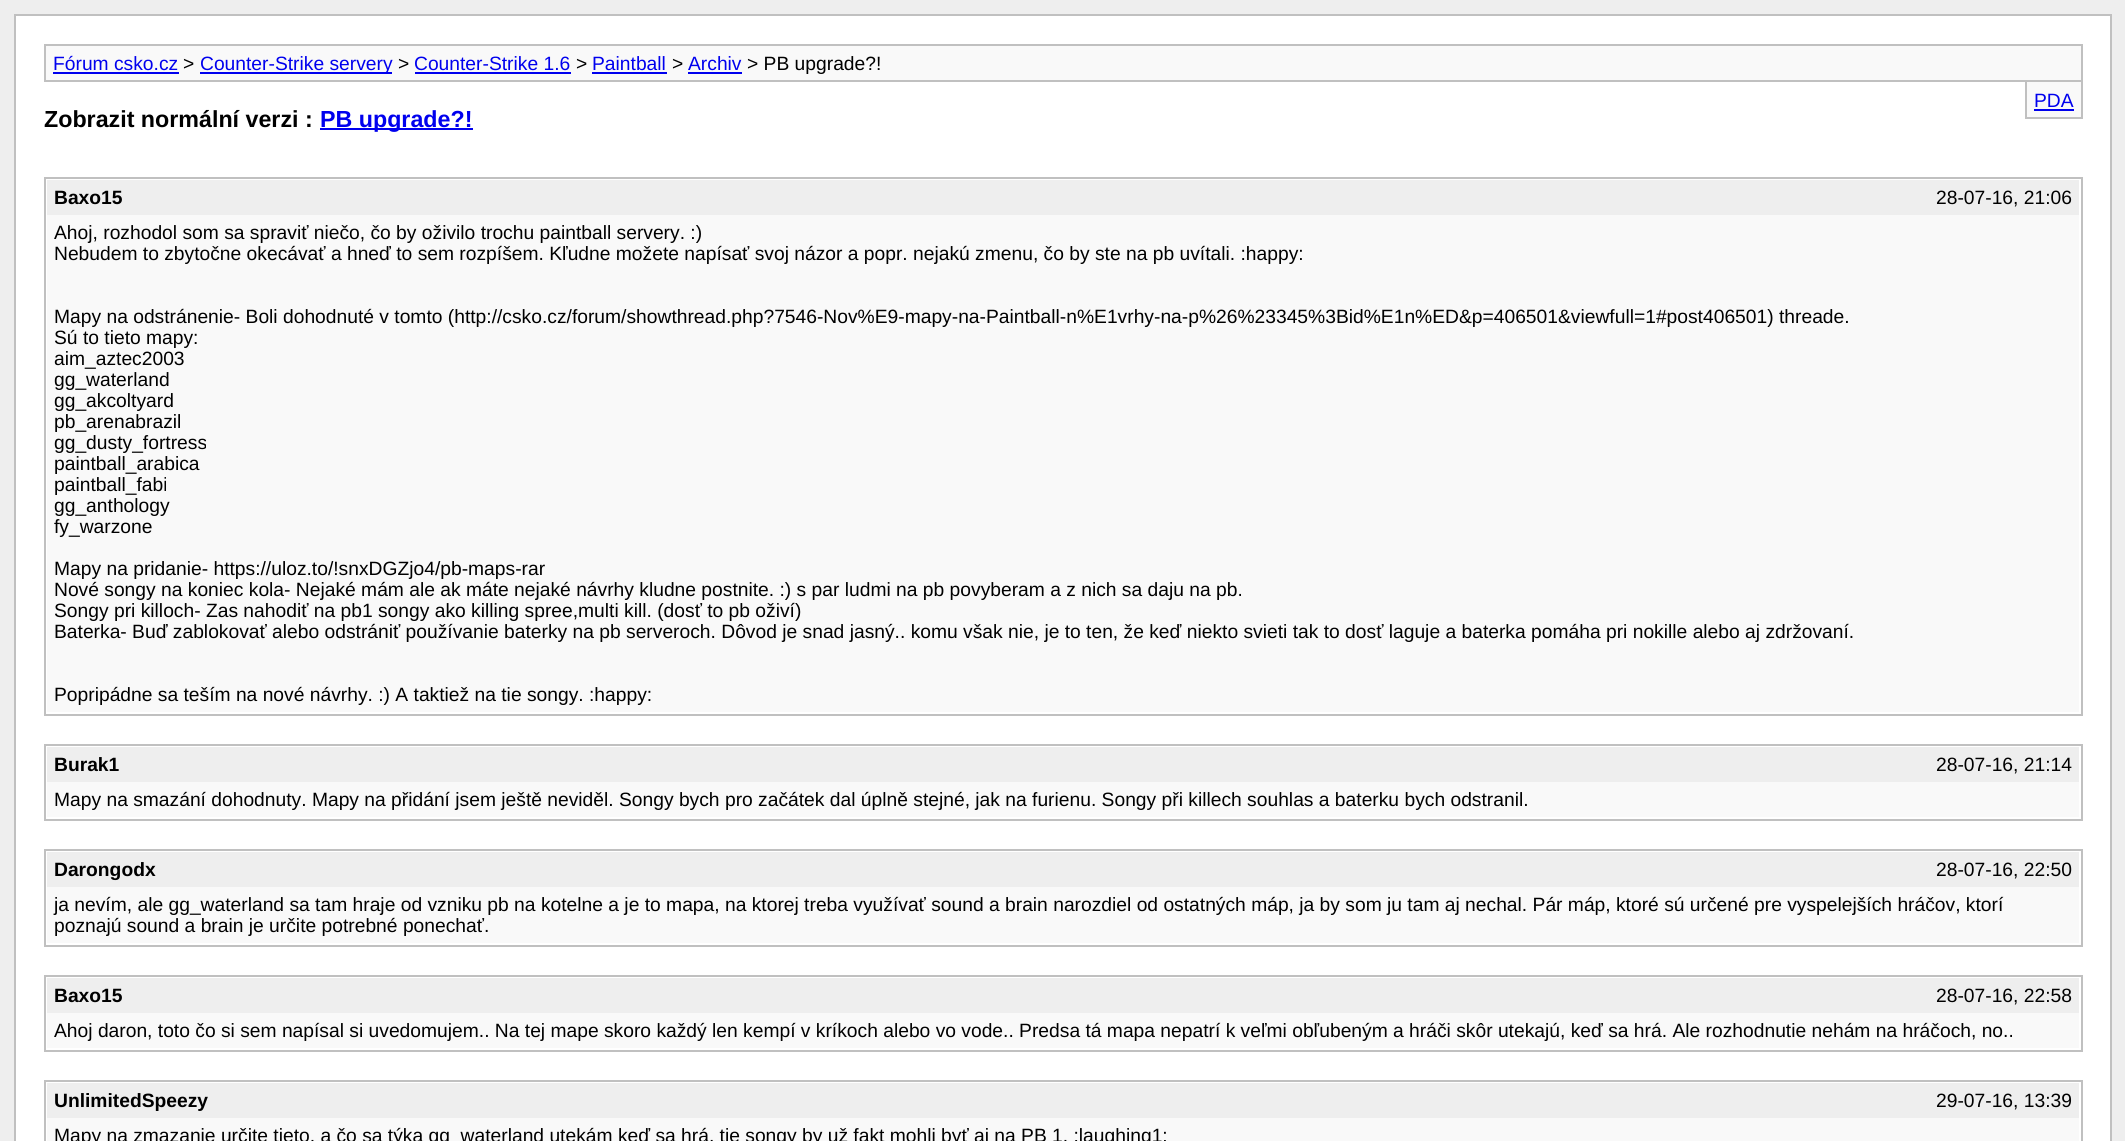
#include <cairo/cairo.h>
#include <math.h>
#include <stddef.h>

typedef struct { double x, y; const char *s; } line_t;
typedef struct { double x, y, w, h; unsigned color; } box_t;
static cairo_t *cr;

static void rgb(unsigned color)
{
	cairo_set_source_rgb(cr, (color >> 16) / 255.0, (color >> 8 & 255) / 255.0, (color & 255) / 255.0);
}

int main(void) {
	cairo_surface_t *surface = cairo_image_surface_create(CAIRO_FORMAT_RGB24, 2125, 1141);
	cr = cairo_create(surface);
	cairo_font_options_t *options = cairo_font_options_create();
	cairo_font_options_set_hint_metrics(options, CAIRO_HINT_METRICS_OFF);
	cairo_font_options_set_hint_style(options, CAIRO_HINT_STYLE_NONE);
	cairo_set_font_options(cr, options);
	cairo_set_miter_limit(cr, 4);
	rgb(0xeeeeee);
	cairo_paint(cr);
	rgb(0xffffff);
	cairo_rectangle(cr, 15, 15, 2096, 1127);
	cairo_fill_preserve(cr);
	rgb(0xc0c0c0);
	cairo_stroke(cr);
	rgb(0xf9f9f9);
	cairo_rectangle(cr, 45, 45, 2037, 36);
	cairo_fill_preserve(cr);
	rgb(0xc0c0c0);
	cairo_stroke(cr);
	{
		static const box_t items[] = {
			{53, 72, 126, 2, 0x0000ee},
			{200, 72, 192, 2, 0x0000ee},
			{415, 72, 156, 2, 0x0000ee},
			{592, 72, 75, 2, 0x0000ee},
			{688, 72, 54, 2, 0x0000ee},
			{2027, 82, 54, 35, 0xf9f9f9},
			{2081, 82, 2, 37, 0xc0c0c0},
			{2025, 117, 58, 2, 0xc0c0c0},
			{2025, 82, 2, 37, 0xc0c0c0},
			{2034, 109, 40, 2, 0x0000ee},
			{320, 128, 153, 2, 0x0000ee},
		};
		for (size_t i = 0; i < sizeof items / sizeof *items; i++) {
			rgb(items[i].color);
			cairo_rectangle(cr, items[i].x, items[i].y, items[i].w, items[i].h);
			cairo_fill(cr);
		}
	}
	cairo_rectangle(cr, 45, 178, 2037, 537);
	rgb(0xc0c0c0);
	cairo_stroke(cr);
	rgb(0xeeeeee);
	cairo_rectangle(cr, 47, 180, 2032, 35);
	cairo_fill(cr);
	rgb(0xf9f9f9);
	cairo_rectangle(cr, 47, 215, 2032, 497);
	cairo_fill(cr);
	cairo_rectangle(cr, 45, 745, 2037, 75);
	rgb(0xc0c0c0);
	cairo_stroke(cr);
	rgb(0xeeeeee);
	cairo_rectangle(cr, 47, 747, 2032, 35);
	cairo_fill(cr);
	rgb(0xf9f9f9);
	cairo_rectangle(cr, 47, 782, 2032, 35);
	cairo_fill(cr);
	cairo_rectangle(cr, 45, 850, 2037, 96);
	rgb(0xc0c0c0);
	cairo_stroke(cr);
	rgb(0xeeeeee);
	cairo_rectangle(cr, 47, 852, 2032, 35);
	cairo_fill(cr);
	rgb(0xf9f9f9);
	cairo_rectangle(cr, 47, 887, 2032, 56);
	cairo_fill(cr);
	cairo_rectangle(cr, 45, 976, 2037, 75);
	rgb(0xc0c0c0);
	cairo_stroke(cr);
	rgb(0xeeeeee);
	cairo_rectangle(cr, 47, 978, 2032, 35);
	cairo_fill(cr);
	rgb(0xf9f9f9);
	cairo_rectangle(cr, 47, 1013, 2032, 35);
	cairo_fill(cr);
	cairo_rectangle(cr, 45, 1081, 2037, 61);
	rgb(0xc0c0c0);
	cairo_stroke(cr);
	rgb(0xeeeeee);
	cairo_rectangle(cr, 47, 1083, 2032, 35);
	cairo_fill(cr);
	rgb(0xf9f9f9);
	cairo_rectangle(cr, 47, 1118, 2032, 23);
	cairo_fill(cr);
	cairo_select_font_face(cr, "Liberation Sans", CAIRO_FONT_SLANT_NORMAL, CAIRO_FONT_WEIGHT_NORMAL);
	cairo_set_font_size(cr, 19.25);
	rgb(0x0000ee);
	cairo_move_to(cr, 53, 70);
	cairo_show_text(cr, "Fórum csko.cz");
	rgb(0x000000);
	cairo_move_to(cr, 183, 70);
	cairo_show_text(cr, ">");
	rgb(0x0000ee);
	cairo_move_to(cr, 200, 70);
	cairo_show_text(cr, "Counter-Strike servery");
	rgb(0x000000);
	cairo_move_to(cr, 398, 70);
	cairo_show_text(cr, ">");
	rgb(0x0000ee);
	cairo_move_to(cr, 414, 70);
	cairo_show_text(cr, "Counter-Strike 1.6");
	rgb(0x000000);
	cairo_move_to(cr, 576, 70);
	cairo_show_text(cr, ">");
	rgb(0x0000ee);
	cairo_move_to(cr, 592, 70);
	cairo_show_text(cr, "Paintball");
	rgb(0x000000);
	cairo_move_to(cr, 672, 70);
	cairo_show_text(cr, ">");
	rgb(0x0000ee);
	cairo_move_to(cr, 688, 70);
	cairo_show_text(cr, "Archiv");
	rgb(0x000000);
	cairo_move_to(cr, 747, 70);
	cairo_show_text(cr, "> PB upgrade?!");
	rgb(0x0000ee);
	cairo_move_to(cr, 2034, 107);
	cairo_show_text(cr, "PDA");
	cairo_select_font_face(cr, "Liberation Sans", CAIRO_FONT_SLANT_NORMAL, CAIRO_FONT_WEIGHT_BOLD);
	cairo_set_font_size(cr, 23.25);
	rgb(0x000000);
	cairo_move_to(cr, 44, 127);
	cairo_show_text(cr, "Zobrazit normální verzi :");
	rgb(0x0000ee);
	cairo_move_to(cr, 320, 127);
	cairo_show_text(cr, "PB upgrade?!");
	cairo_set_font_size(cr, 19.25);
	rgb(0x000000);
	cairo_move_to(cr, 54, 204);
	cairo_show_text(cr, "Baxo15");
	cairo_select_font_face(cr, "Liberation Sans", CAIRO_FONT_SLANT_NORMAL, CAIRO_FONT_WEIGHT_NORMAL);
	{
		static const line_t items[] = {
			{1936, 204, "28-07-16, 21:06"},
			{54, 239, "Ahoj, rozhodol som sa spraviť niečo, čo by oživilo trochu paintball servery. :)"},
			{54, 260, "Nebudem to zbytočne okecávať a hneď to sem rozpíšem. Kľudne možete napísať svoj názor a popr. nejakú zmenu, čo by ste na pb uvítali. :happy:"},
			{54, 323, "Mapy na odstránenie- Boli dohodnuté v tomto (http://csko.cz/forum/showthread.php?7546-Nov%E9-mapy-na-Paintball-n%E1vrhy-na-p%26%23345%3Bid%E1n%ED&p=406501&viewfull=1#post406501) threade."},
			{54, 344, "Sú to tieto mapy:"},
			{54, 365, "aim_aztec2003"},
			{54, 386, "gg_waterland"},
			{54, 407, "gg_akcoltyard"},
			{54, 428, "pb_arenabrazil"},
			{54, 449, "gg_dusty_fortress"},
			{54, 470, "paintball_arabica"},
			{54, 491, "paintball_fabi"},
			{54, 512, "gg_anthology"},
			{54, 533, "fy_warzone"},
			{54, 575, "Mapy na pridanie- https://uloz.to/!snxDGZjo4/pb-maps-rar"},
			{54, 596, "Nové songy na koniec kola- Nejaké mám ale ak máte nejaké návrhy kludne postnite. :) s par ludmi na pb povyberam a z nich sa daju na pb."},
			{54, 617, "Songy pri killoch- Zas nahodiť na pb1 songy ako killing spree,multi kill. (dosť to pb oživí)"},
			{54, 638, "Baterka- Buď zablokovať alebo odstrániť používanie baterky na pb serveroch. Dôvod je snad jasný.. komu však nie, je to ten, že keď niekto svieti tak to dosť laguje a baterka pomáha pri nokille alebo aj zdržovaní."},
			{54, 701, "Popripádne sa teším na nové návrhy. :) A taktiež na tie songy. :happy:"},
		};
		for (size_t i = 0; i < sizeof items / sizeof *items; i++) {
			cairo_move_to(cr, items[i].x, items[i].y);
			cairo_show_text(cr, items[i].s);
		}
	}
	cairo_select_font_face(cr, "Liberation Sans", CAIRO_FONT_SLANT_NORMAL, CAIRO_FONT_WEIGHT_BOLD);
	cairo_move_to(cr, 54, 771);
	cairo_show_text(cr, "Burak1");
	cairo_select_font_face(cr, "Liberation Sans", CAIRO_FONT_SLANT_NORMAL, CAIRO_FONT_WEIGHT_NORMAL);
	cairo_move_to(cr, 1936, 771);
	cairo_show_text(cr, "28-07-16, 21:14");
	cairo_move_to(cr, 54, 806);
	cairo_show_text(cr, "Mapy na smazání dohodnuty. Mapy na přidání jsem ještě neviděl. Songy bych pro začátek dal úplně stejné, jak na furienu. Songy při killech souhlas a baterku bych odstranil.");
	cairo_select_font_face(cr, "Liberation Sans", CAIRO_FONT_SLANT_NORMAL, CAIRO_FONT_WEIGHT_BOLD);
	cairo_move_to(cr, 54, 876);
	cairo_show_text(cr, "Darongodx");
	cairo_select_font_face(cr, "Liberation Sans", CAIRO_FONT_SLANT_NORMAL, CAIRO_FONT_WEIGHT_NORMAL);
	{
		static const line_t items[] = {
			{1936, 876, "28-07-16, 22:50"},
			{54, 911, "ja nevím, ale gg_waterland sa tam hraje od vzniku pb na kotelne a je to mapa, na ktorej treba využívať sound a brain narozdiel od ostatných máp, ja by som ju tam aj nechal. Pár máp, ktoré sú určené pre vyspelejších hráčov, ktorí"},
			{54, 932, "poznajú sound a brain je určite potrebné ponechať."},
		};
		for (size_t i = 0; i < sizeof items / sizeof *items; i++) {
			cairo_move_to(cr, items[i].x, items[i].y);
			cairo_show_text(cr, items[i].s);
		}
	}
	cairo_select_font_face(cr, "Liberation Sans", CAIRO_FONT_SLANT_NORMAL, CAIRO_FONT_WEIGHT_BOLD);
	cairo_move_to(cr, 54, 1002);
	cairo_show_text(cr, "Baxo15");
	cairo_select_font_face(cr, "Liberation Sans", CAIRO_FONT_SLANT_NORMAL, CAIRO_FONT_WEIGHT_NORMAL);
	cairo_move_to(cr, 1936, 1002);
	cairo_show_text(cr, "28-07-16, 22:58");
	cairo_move_to(cr, 54, 1037);
	cairo_show_text(cr, "Ahoj daron, toto čo si sem napísal si uvedomujem.. Na tej mape skoro každý len kempí v kríkoch alebo vo vode.. Predsa tá mapa nepatrí k veľmi obľubeným a hráči skôr utekajú, keď sa hrá. Ale rozhodnutie nehám na hráčoch, no..");
	cairo_select_font_face(cr, "Liberation Sans", CAIRO_FONT_SLANT_NORMAL, CAIRO_FONT_WEIGHT_BOLD);
	cairo_move_to(cr, 54, 1107);
	cairo_show_text(cr, "UnlimitedSpeezy");
	cairo_select_font_face(cr, "Liberation Sans", CAIRO_FONT_SLANT_NORMAL, CAIRO_FONT_WEIGHT_NORMAL);
	cairo_move_to(cr, 1936, 1107);
	cairo_show_text(cr, "29-07-16, 13:39");
	cairo_move_to(cr, 54, 1142);
	cairo_show_text(cr, "Mapy na zmazanie určite tieto, a čo sa týka gg_waterland utekám keď sa hrá, tie songy by už fakt mohli byť aj na PB 1. :laughing1:");
	cairo_surface_write_to_png(surface, "page.png");
	cairo_font_options_destroy(options);
	cairo_destroy(cr);
	cairo_surface_destroy(surface);
	return 0;
}
